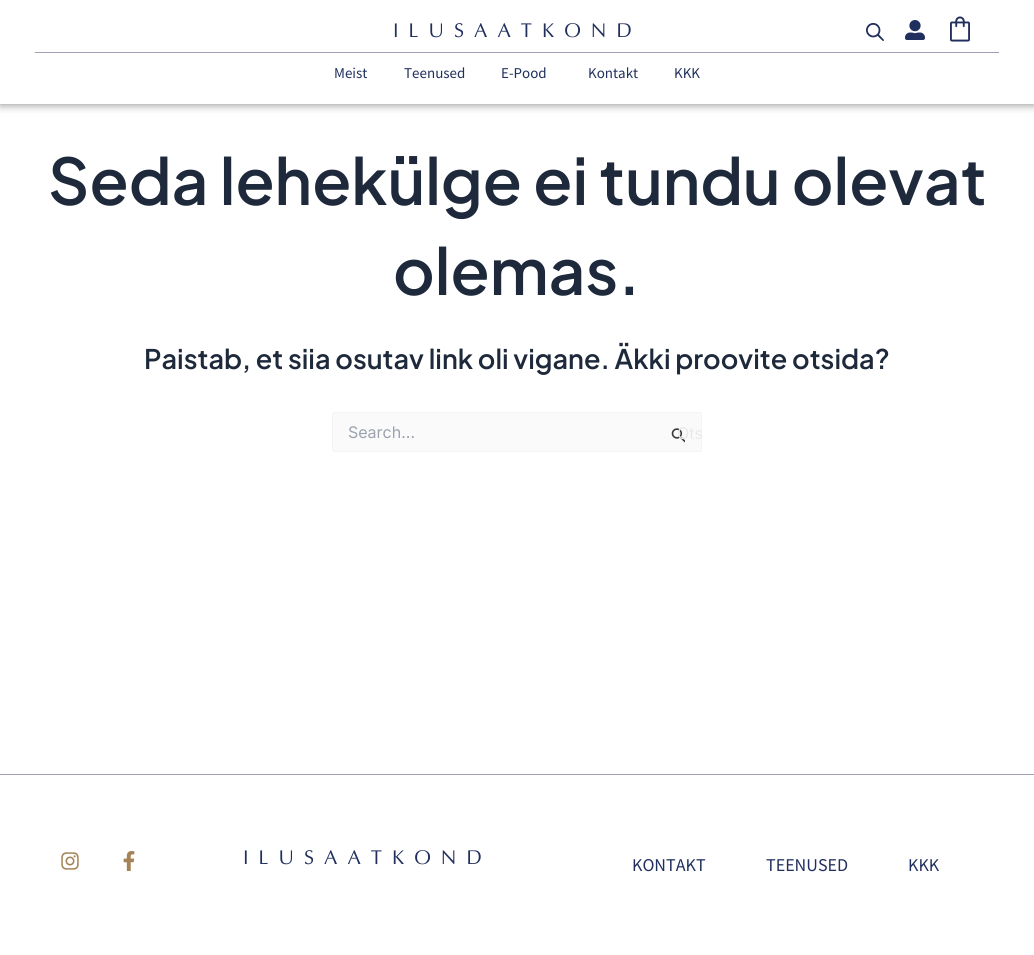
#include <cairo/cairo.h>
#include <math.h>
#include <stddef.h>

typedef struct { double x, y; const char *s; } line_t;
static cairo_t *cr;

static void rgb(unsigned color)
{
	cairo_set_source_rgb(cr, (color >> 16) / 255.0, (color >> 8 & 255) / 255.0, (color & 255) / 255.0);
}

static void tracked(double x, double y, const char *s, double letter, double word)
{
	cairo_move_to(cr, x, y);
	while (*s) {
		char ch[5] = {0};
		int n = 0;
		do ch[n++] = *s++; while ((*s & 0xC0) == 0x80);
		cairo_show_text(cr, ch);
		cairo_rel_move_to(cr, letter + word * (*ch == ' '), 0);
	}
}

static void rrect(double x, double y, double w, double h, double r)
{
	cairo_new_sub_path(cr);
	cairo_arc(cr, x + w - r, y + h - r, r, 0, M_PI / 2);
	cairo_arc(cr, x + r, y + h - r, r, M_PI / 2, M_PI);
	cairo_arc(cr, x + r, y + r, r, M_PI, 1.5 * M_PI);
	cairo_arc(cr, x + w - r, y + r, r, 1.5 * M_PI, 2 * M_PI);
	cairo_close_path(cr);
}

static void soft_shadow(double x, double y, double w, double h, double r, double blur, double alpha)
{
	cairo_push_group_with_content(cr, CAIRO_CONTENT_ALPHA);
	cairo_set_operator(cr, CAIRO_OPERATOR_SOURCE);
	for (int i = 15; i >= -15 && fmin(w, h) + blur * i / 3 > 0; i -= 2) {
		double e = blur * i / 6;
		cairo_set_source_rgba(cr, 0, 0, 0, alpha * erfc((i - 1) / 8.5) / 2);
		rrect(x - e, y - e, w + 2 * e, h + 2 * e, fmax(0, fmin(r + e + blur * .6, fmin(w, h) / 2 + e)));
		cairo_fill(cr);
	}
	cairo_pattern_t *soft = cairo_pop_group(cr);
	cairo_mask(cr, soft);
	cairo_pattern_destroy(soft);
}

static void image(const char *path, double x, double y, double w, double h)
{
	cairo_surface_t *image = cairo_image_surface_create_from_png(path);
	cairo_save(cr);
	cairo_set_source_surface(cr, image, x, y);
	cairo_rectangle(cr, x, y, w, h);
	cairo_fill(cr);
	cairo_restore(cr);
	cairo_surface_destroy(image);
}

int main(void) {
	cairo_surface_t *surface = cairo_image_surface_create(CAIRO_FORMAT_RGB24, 1034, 955);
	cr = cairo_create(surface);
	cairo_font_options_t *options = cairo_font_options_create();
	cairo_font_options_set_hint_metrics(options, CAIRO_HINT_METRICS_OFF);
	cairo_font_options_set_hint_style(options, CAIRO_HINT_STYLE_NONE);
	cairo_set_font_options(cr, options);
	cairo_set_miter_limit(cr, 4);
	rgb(0xffffff);
	cairo_paint(cr);
	cairo_save(cr);
	cairo_rectangle(cr, 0, 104, 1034, 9);
	cairo_clip(cr);
	rgb(0x000000);
	soft_shadow(0, 0, 1034, 104, 0, 5, 0.5);
	cairo_restore(cr);
	image("img/1.png", 866, 23, 18, 18);
	image("img/2.png", 905, 20, 20, 20);
	image("img/3.png", 950, 16, 20, 26);
	rgb(0xa09fb9);
	cairo_rectangle(cr, 35, 52, 964, 1);
	cairo_fill(cr);
	rgb(0xfafafa);
	rrect(332.5, 412.5, 369, 39, 1.5);
	cairo_fill_preserve(cr);
	rgb(0xf2f5f7);
	cairo_set_line_width(cr, 1);
	cairo_stroke(cr);
	image("img/4.png", 671, 428, 14, 15);
	rgb(0xa09fb9);
	cairo_rectangle(cr, 0, 774, 1034, 1);
	cairo_fill(cr);
	image("img/5.png", 61, 852, 18, 18);
	image("img/6.png", 123, 851, 12, 20);
	cairo_select_font_face(cr, "Optima", CAIRO_FONT_SLANT_NORMAL, CAIRO_FONT_WEIGHT_NORMAL);
	cairo_set_font_size(cr, 20);
	rgb(0x202f5e);
	tracked(393, 37, "ILUSAATKOND", 10, 0);
	cairo_select_font_face(cr, "Source Sans Pro", CAIRO_FONT_SLANT_NORMAL, CAIRO_FONT_WEIGHT_NORMAL);
	cairo_set_font_size(cr, 15);
	{
		static const line_t items[] = {
			{334, 78, "Meist"},
			{404, 78, "Teenused"},
			{501, 78, "E-Pood"},
			{588, 78, "Kontakt"},
			{674, 78, "KKK"},
		};
		for (size_t i = 0; i < sizeof items / sizeof *items; i++) {
			cairo_move_to(cr, items[i].x, items[i].y);
			cairo_show_text(cr, items[i].s);
		}
	}
	cairo_select_font_face(cr, "Plus Jakarta Sans SemiBold", CAIRO_FONT_SLANT_NORMAL, CAIRO_FONT_WEIGHT_NORMAL);
	cairo_set_font_size(cr, 64);
	rgb(0x1e293b);
	cairo_move_to(cr, 48, 205);
	cairo_show_text(cr, "Seda lehekülge ei tundu olevat");
	cairo_move_to(cr, 393, 295);
	cairo_show_text(cr, "olemas.");
	cairo_set_font_size(cr, 27);
	cairo_move_to(cr, 144, 369);
	cairo_show_text(cr, "Paistab, et siia osutav link oli vigane. Äkki proovite otsida?");
	cairo_select_font_face(cr, "Inter", CAIRO_FONT_SLANT_NORMAL, CAIRO_FONT_WEIGHT_NORMAL);
	cairo_set_font_size(cr, 16);
	rgb(0x9ca3af);
	cairo_move_to(cr, 348, 438);
	cairo_show_text(cr, "Search...");
	rgb(0xe9e9e9);
	cairo_move_to(cr, 677, 439);
	cairo_show_text(cr, "Ots");
	cairo_select_font_face(cr, "Optima", CAIRO_FONT_SLANT_NORMAL, CAIRO_FONT_WEIGHT_NORMAL);
	cairo_set_font_size(cr, 20);
	rgb(0x202f5e);
	tracked(243, 864, "ILUSAATKOND", 10, 0);
	cairo_select_font_face(cr, "Source Sans Pro", CAIRO_FONT_SLANT_NORMAL, CAIRO_FONT_WEIGHT_NORMAL);
	cairo_set_font_size(cr, 18);
	{
		static const line_t items[] = {
			{632, 871, "KONTAKT"},
			{766, 871, "TEENUSED"},
			{908, 871, "KKK"},
		};
		for (size_t i = 0; i < sizeof items / sizeof *items; i++) {
			cairo_move_to(cr, items[i].x, items[i].y);
			cairo_show_text(cr, items[i].s);
		}
	}
	cairo_surface_write_to_png(surface, "page.png");
	cairo_font_options_destroy(options);
	cairo_destroy(cr);
	cairo_surface_destroy(surface);
	return 0;
}
